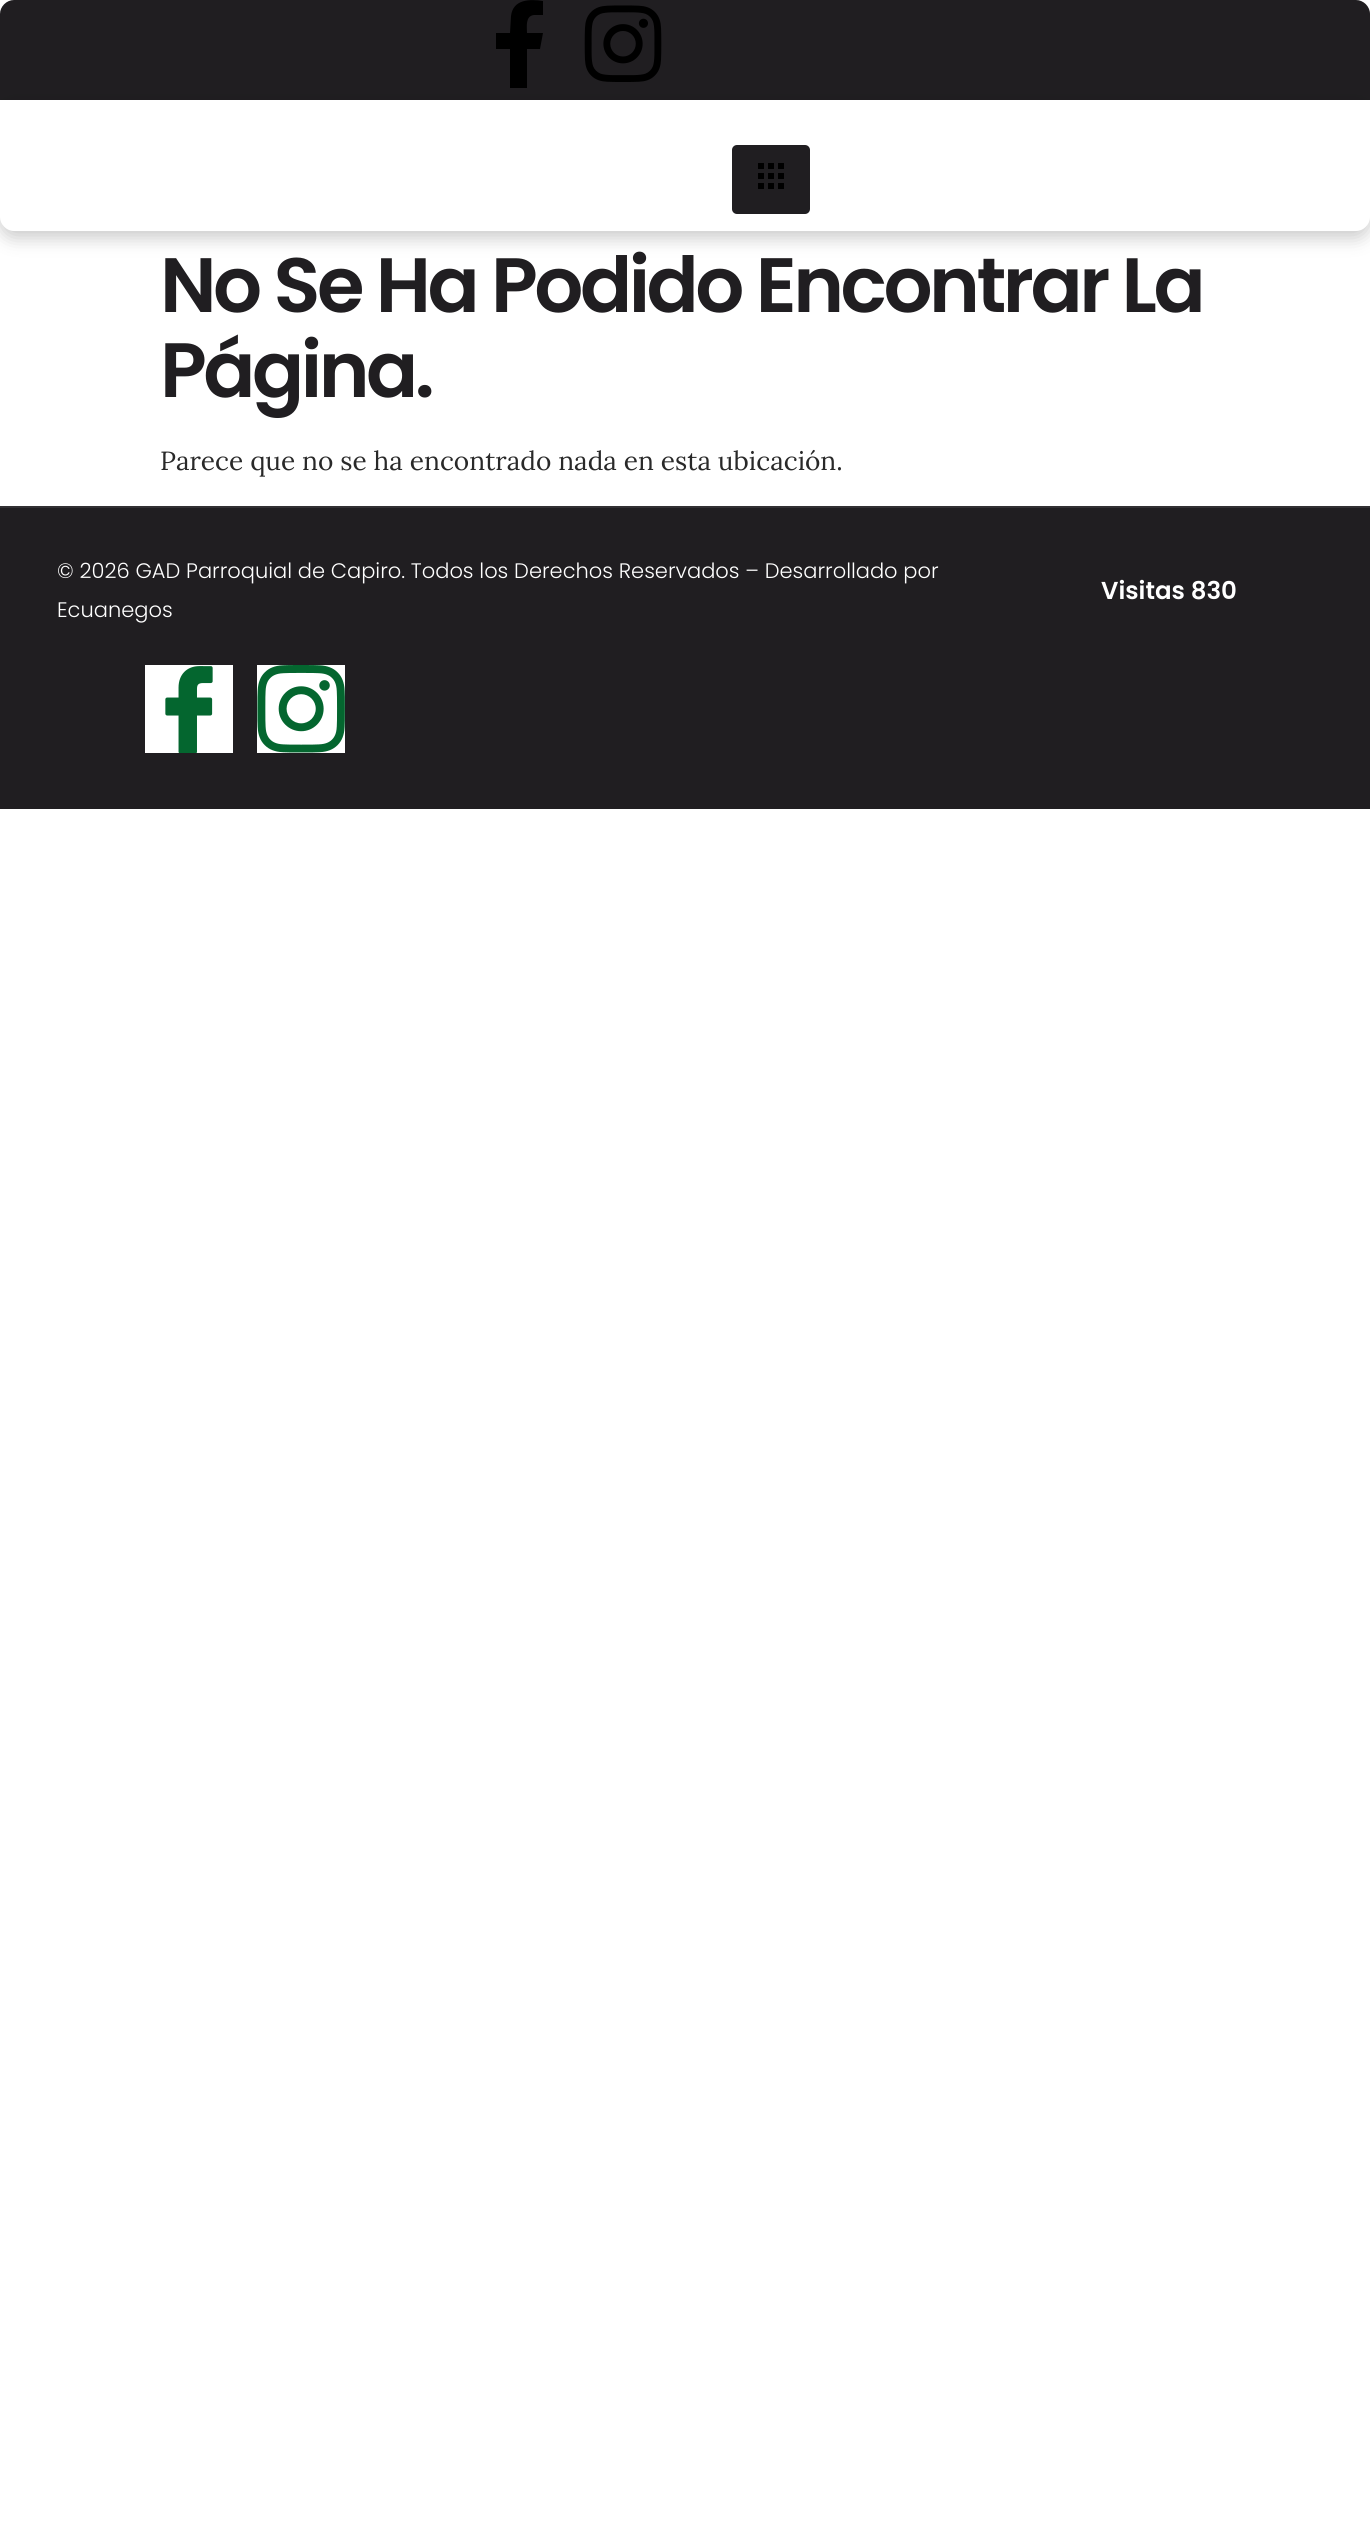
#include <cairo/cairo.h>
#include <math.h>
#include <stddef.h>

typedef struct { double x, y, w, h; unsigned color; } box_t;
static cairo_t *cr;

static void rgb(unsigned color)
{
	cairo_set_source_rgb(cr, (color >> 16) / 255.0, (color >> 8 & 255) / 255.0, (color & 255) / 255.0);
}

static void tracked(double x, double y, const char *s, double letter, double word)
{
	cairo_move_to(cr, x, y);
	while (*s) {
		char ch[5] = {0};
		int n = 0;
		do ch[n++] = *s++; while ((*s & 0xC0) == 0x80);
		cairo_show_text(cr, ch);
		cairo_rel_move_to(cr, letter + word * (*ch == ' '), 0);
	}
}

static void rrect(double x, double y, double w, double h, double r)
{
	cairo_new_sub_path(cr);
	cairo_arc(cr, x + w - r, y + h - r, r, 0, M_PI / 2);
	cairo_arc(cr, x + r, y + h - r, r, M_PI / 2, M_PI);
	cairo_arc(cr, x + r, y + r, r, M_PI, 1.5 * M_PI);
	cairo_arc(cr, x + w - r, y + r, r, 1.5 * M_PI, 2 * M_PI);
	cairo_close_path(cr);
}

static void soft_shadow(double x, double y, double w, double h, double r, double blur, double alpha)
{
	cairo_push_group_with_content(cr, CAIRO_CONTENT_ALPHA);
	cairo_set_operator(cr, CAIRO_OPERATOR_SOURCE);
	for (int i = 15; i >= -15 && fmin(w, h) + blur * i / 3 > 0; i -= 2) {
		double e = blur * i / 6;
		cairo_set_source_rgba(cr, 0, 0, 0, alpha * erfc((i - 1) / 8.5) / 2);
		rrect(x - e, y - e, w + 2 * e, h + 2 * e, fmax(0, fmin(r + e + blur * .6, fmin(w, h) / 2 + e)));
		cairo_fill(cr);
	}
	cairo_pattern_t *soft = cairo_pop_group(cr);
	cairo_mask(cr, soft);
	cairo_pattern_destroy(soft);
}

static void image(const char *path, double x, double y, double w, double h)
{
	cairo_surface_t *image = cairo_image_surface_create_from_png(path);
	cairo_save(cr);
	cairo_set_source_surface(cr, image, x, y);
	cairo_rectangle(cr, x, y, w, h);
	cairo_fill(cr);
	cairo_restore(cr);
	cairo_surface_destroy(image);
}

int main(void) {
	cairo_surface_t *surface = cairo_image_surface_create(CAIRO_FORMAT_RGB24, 1370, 2529);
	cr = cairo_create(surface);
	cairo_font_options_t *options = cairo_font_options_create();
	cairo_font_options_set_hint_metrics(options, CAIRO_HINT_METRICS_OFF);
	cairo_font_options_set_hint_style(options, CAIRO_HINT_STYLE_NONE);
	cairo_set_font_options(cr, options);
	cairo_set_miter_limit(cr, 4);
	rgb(0xffffff);
	cairo_paint(cr);
	rgb(0x201e21);
	cairo_new_path(cr);
	cairo_move_to(cr, 14, 0);
	cairo_line_to(cr, 1356, 0);
	cairo_curve_to(cr, 1363.5, 0, 1370, 6.5, 1370, 14);
	cairo_line_to(cr, 1370, 100);
	cairo_line_to(cr, 0, 100);
	cairo_line_to(cr, 0, 14);
	cairo_curve_to(cr, 0, 6.5, 6.5, 0, 14, 0);
	cairo_close_path(cr);
	cairo_fill(cr);
	rgb(0x000000);
	cairo_new_path(cr);
	cairo_move_to(cr, 540, 49);
	cairo_line_to(cr, 543, 33);
	cairo_line_to(cr, 527, 33);
	cairo_curve_to(cr, 527, 27, 525, 16, 534, 15);
	cairo_line_to(cr, 543, 15);
	cairo_line_to(cr, 543, 1);
	cairo_curve_to(cr, 530, -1, 513, -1, 511, 16);
	cairo_line_to(cr, 510, 33);
	cairo_line_to(cr, 496, 33);
	cairo_line_to(cr, 496, 49);
	cairo_line_to(cr, 510, 49);
	cairo_line_to(cr, 510, 88);
	cairo_line_to(cr, 527, 88);
	cairo_line_to(cr, 527, 49);
	cairo_close_path(cr);
	cairo_fill(cr);
	image("img/1.png", 584, 5, 78, 77);
	rgb(0x000000);
	soft_shadow(0, 107, 1370, 131, 14, 9, 0.21);
	rgb(0xffffff);
	cairo_new_path(cr);
	cairo_move_to(cr, 0, 100);
	cairo_line_to(cr, 1370, 100);
	cairo_line_to(cr, 1370, 217);
	cairo_curve_to(cr, 1370, 224.5, 1363.5, 231, 1356, 231);
	cairo_line_to(cr, 14, 231);
	cairo_curve_to(cr, 6.5, 231, 0, 224.5, 0, 217);
	cairo_close_path(cr);
	cairo_fill(cr);
	rgb(0x201e21);
	rrect(732, 145, 78, 69, 5);
	cairo_fill(cr);
	image("img/2.png", 758, 163, 26, 26);
	{
		static const box_t items[] = {
			{0, 508, 1370, 301, 0x201e21},
			{0, 506, 1370, 2, 0x323033},
			{145, 665, 88, 88, 0xffffff},
		};
		for (size_t i = 0; i < sizeof items / sizeof *items; i++) {
			rgb(items[i].color);
			cairo_rectangle(cr, items[i].x, items[i].y, items[i].w, items[i].h);
			cairo_fill(cr);
		}
	}
	image("img/3.png", 165, 666, 48, 87);
	cairo_rectangle(cr, 257, 665, 88, 88);
	cairo_fill(cr);
	image("img/4.png", 257, 665, 88, 88);
	cairo_select_font_face(cr, "Poppins SemiBold", CAIRO_FONT_SLANT_NORMAL, CAIRO_FONT_WEIGHT_NORMAL);
	cairo_set_font_size(cr, 77);
	rgb(0x201e21);
	tracked(160, 312, "No Se Ha Podido Encontrar La", -3.5, 0);
	tracked(160, 397, "Página.", -3.5, 0);
	cairo_select_font_face(cr, "Lora", CAIRO_FONT_SLANT_NORMAL, CAIRO_FONT_WEIGHT_NORMAL);
	cairo_set_font_size(cr, 26.25);
	rgb(0x292929);
	cairo_move_to(cr, 160, 470);
	cairo_show_text(cr, "Parece que no se ha encontrado nada en esta ubicación.");
	cairo_select_font_face(cr, "Poppins Light", CAIRO_FONT_SLANT_NORMAL, CAIRO_FONT_WEIGHT_NORMAL);
	cairo_set_font_size(cr, 21);
	rgb(0xffffff);
	cairo_move_to(cr, 57, 578);
	cairo_show_text(cr, "© 2026 GAD Parroquial de Capiro. Todos los Derechos Reservados – Desarrollado por");
	cairo_move_to(cr, 57, 617);
	cairo_show_text(cr, "Ecuanegos");
	cairo_select_font_face(cr, "Poppins SemiBold", CAIRO_FONT_SLANT_NORMAL, CAIRO_FONT_WEIGHT_NORMAL);
	cairo_set_font_size(cr, 24.5);
	cairo_move_to(cr, 1101, 599);
	cairo_show_text(cr, "Visitas 830");
	cairo_surface_write_to_png(surface, "page.png");
	cairo_font_options_destroy(options);
	cairo_destroy(cr);
	cairo_surface_destroy(surface);
	return 0;
}
